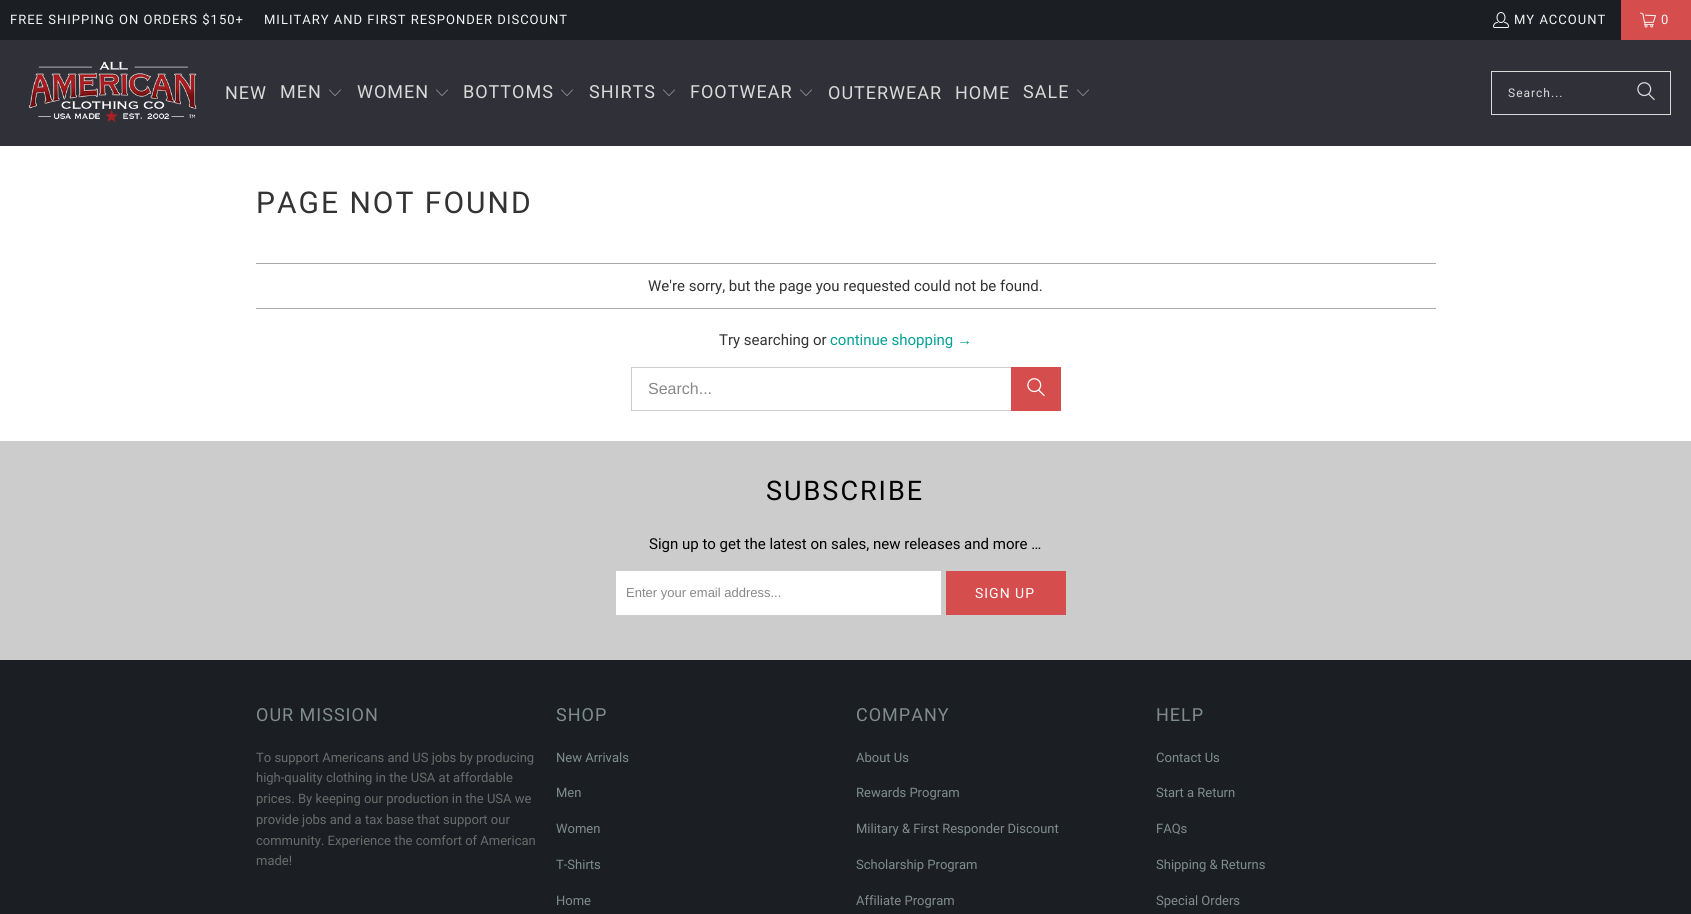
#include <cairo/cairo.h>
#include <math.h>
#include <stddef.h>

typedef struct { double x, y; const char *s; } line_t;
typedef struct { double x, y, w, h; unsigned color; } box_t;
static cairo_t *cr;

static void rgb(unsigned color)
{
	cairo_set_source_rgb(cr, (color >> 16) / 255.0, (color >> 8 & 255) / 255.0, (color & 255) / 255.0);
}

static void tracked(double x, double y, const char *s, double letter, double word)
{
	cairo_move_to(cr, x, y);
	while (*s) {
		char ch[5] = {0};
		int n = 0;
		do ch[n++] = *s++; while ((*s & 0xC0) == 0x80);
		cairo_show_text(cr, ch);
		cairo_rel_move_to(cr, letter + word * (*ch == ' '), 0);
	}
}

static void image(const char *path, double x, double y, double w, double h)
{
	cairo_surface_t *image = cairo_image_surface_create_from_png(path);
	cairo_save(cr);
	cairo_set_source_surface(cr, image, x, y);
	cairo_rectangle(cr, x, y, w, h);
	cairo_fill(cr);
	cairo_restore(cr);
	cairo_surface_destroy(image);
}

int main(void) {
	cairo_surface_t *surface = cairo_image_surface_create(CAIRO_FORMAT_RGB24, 1691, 914);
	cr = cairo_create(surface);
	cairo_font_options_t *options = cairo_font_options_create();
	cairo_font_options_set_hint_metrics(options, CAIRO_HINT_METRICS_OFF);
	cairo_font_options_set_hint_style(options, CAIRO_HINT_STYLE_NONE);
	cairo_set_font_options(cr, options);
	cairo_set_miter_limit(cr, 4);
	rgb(0xffffff);
	cairo_paint(cr);
	rgb(0x1b1f23);
	cairo_rectangle(cr, 0, 0, 1621, 40);
	cairo_fill(cr);
	image("img/1.png", 1493, 12, 16, 16);
	rgb(0xd54d4d);
	cairo_rectangle(cr, 1621, 0, 70, 40);
	cairo_fill(cr);
	image("img/2.png", 1640, 12, 16, 16);
	rgb(0x303138);
	cairo_rectangle(cr, 0, 40, 1691, 106);
	cairo_fill(cr);
	image("img/3.png", 29, 61, 168, 61);
	image("img/4.png", 329, 89, 12, 7);
	image("img/4.png", 436, 89, 12, 7);
	image("img/4.png", 561, 89, 12, 7);
	image("img/4.png", 663, 89, 12, 7);
	image("img/4.png", 800, 89, 12, 7);
	image("img/4.png", 1077, 89, 12, 7);
	cairo_rectangle(cr, 1491.5, 71.5, 179, 43);
	rgb(0xd9d9d9);
	cairo_set_line_width(cr, 1);
	cairo_stroke(cr);
	image("img/5.png", 1637, 82, 18, 19);
	rgb(0xaaaaaa);
	cairo_rectangle(cr, 256, 263, 1180, 1);
	cairo_fill(cr);
	cairo_rectangle(cr, 256, 308, 1180, 1);
	cairo_fill(cr);
	cairo_rectangle(cr, 631.5, 367.5, 429, 43);
	rgb(0xcccccc);
	cairo_stroke(cr);
	rgb(0xd54d4d);
	cairo_rectangle(cr, 1011, 367, 50, 44);
	cairo_fill(cr);
	image("img/6.png", 1027, 378, 18, 19);
	{
		static const box_t items[] = {
			{0, 441, 1691, 219, 0xcccccc},
			{616, 571, 325, 44, 0xffffff},
			{946, 571, 120, 44, 0xd54d4d},
			{0, 660, 1691, 254, 0x1b1f23},
		};
		for (size_t i = 0; i < sizeof items / sizeof *items; i++) {
			rgb(items[i].color);
			cairo_rectangle(cr, items[i].x, items[i].y, items[i].w, items[i].h);
			cairo_fill(cr);
		}
	}
	cairo_select_font_face(cr, "Roboto", CAIRO_FONT_SLANT_NORMAL, CAIRO_FONT_WEIGHT_NORMAL);
	cairo_set_font_size(cr, 13);
	rgb(0xf4f4f4);
	{
		static const line_t items[] = {
			{10, 24, "FREE SHIPPING ON ORDERS $150+"},
			{264, 24, "MILITARY AND FIRST RESPONDER DISCOUNT"},
			{1514, 24, "MY ACCOUNT"},
			{1661, 24, "0"},
		};
		for (size_t i = 0; i < sizeof items / sizeof *items; i++) {
			tracked(items[i].x, items[i].y, items[i].s, 1, 0);
		}
	}
	cairo_set_font_size(cr, 18);
	rgb(0xd9d9d9);
	{
		static const line_t items[] = {
			{225, 99, "NEW"},
			{280, 98, "MEN"},
			{357, 98, "WOMEN"},
			{463, 98, "BOTTOMS"},
			{589, 98, "SHIRTS"},
			{690, 98, "FOOTWEAR"},
			{828, 99, "OUTERWEAR"},
			{955, 99, "HOME"},
			{1023, 98, "SALE"},
		};
		for (size_t i = 0; i < sizeof items / sizeof *items; i++) {
			tracked(items[i].x, items[i].y, items[i].s, 1, 0);
		}
	}
	cairo_set_font_size(cr, 12);
	tracked(1508, 97, "Search...", 1, 0);
	cairo_set_font_size(cr, 30);
	rgb(0x333333);
	tracked(256, 213, "PAGE NOT FOUND", 2, 0);
	cairo_set_font_size(cr, 15);
	cairo_move_to(cr, 648, 291);
	cairo_show_text(cr, "We're sorry, but the page you requested could not be found.");
	cairo_move_to(cr, 719, 345);
	cairo_show_text(cr, "Try searching or");
	rgb(0x03a196);
	cairo_move_to(cr, 830, 345);
	cairo_show_text(cr, "continue shopping");
	cairo_select_font_face(cr, "Liberation Sans", CAIRO_FONT_SLANT_NORMAL, CAIRO_FONT_WEIGHT_NORMAL);
	cairo_move_to(cr, 957, 345);
	cairo_show_text(cr, "→");
	cairo_set_font_size(cr, 16);
	rgb(0x888888);
	cairo_move_to(cr, 648, 394);
	cairo_show_text(cr, "Search...");
	cairo_select_font_face(cr, "Roboto", CAIRO_FONT_SLANT_NORMAL, CAIRO_FONT_WEIGHT_NORMAL);
	cairo_set_font_size(cr, 27);
	rgb(0x000000);
	tracked(766, 500, "SUBSCRIBE", 2, 0);
	cairo_set_font_size(cr, 15);
	cairo_move_to(cr, 649, 549);
	cairo_show_text(cr, "Sign up to get the latest on sales, new releases and more …");
	cairo_select_font_face(cr, "Liberation Sans", CAIRO_FONT_SLANT_NORMAL, CAIRO_FONT_WEIGHT_NORMAL);
	cairo_set_font_size(cr, 13);
	rgb(0x888888);
	cairo_move_to(cr, 626, 597);
	cairo_show_text(cr, "Enter your email address...");
	cairo_select_font_face(cr, "Roboto", CAIRO_FONT_SLANT_NORMAL, CAIRO_FONT_WEIGHT_NORMAL);
	cairo_set_font_size(cr, 14);
	rgb(0xffffff);
	tracked(975, 598, "SIGN UP", 1, 0);
	cairo_set_font_size(cr, 18);
	rgb(0x7f8c8d);
	tracked(256, 721, "OUR MISSION", 1, 0);
	cairo_set_font_size(cr, 13);
	rgb(0x6b6b6b);
	{
		static const line_t items[] = {
			{256, 762, "To support Americans and US jobs by producing"},
			{256, 782, "high-quality clothing in the USA at affordable"},
			{256, 803, "prices. By keeping our production in the USA we"},
			{256, 824, "provide jobs and a tax base that support our"},
			{256, 845, "community. Experience the comfort of American"},
			{256, 865, "made!"},
		};
		for (size_t i = 0; i < sizeof items / sizeof *items; i++) {
			cairo_move_to(cr, items[i].x, items[i].y);
			cairo_show_text(cr, items[i].s);
		}
	}
	cairo_set_font_size(cr, 18);
	rgb(0x7f8c8d);
	tracked(556, 721, "SHOP", 1, 0);
	cairo_set_font_size(cr, 13);
	{
		static const line_t items[] = {
			{556, 762, "New Arrivals"},
			{556, 797, "Men"},
			{556, 833, "Women"},
			{556, 869, "T-Shirts"},
			{556, 905, "Home"},
		};
		for (size_t i = 0; i < sizeof items / sizeof *items; i++) {
			cairo_move_to(cr, items[i].x, items[i].y);
			cairo_show_text(cr, items[i].s);
		}
	}
	cairo_set_font_size(cr, 18);
	tracked(856, 721, "COMPANY", 1, 0);
	cairo_set_font_size(cr, 13);
	{
		static const line_t items[] = {
			{856, 762, "About Us"},
			{856, 797, "Rewards Program"},
			{856, 833, "Military & First Responder Discount"},
			{856, 869, "Scholarship Program"},
			{856, 905, "Affiliate Program"},
		};
		for (size_t i = 0; i < sizeof items / sizeof *items; i++) {
			cairo_move_to(cr, items[i].x, items[i].y);
			cairo_show_text(cr, items[i].s);
		}
	}
	cairo_set_font_size(cr, 18);
	tracked(1156, 721, "HELP", 1, 0);
	cairo_set_font_size(cr, 13);
	{
		static const line_t items[] = {
			{1156, 762, "Contact Us"},
			{1156, 797, "Start a Return"},
			{1156, 833, "FAQs"},
			{1156, 869, "Shipping & Returns"},
			{1156, 905, "Special Orders"},
		};
		for (size_t i = 0; i < sizeof items / sizeof *items; i++) {
			cairo_move_to(cr, items[i].x, items[i].y);
			cairo_show_text(cr, items[i].s);
		}
	}
	cairo_surface_write_to_png(surface, "page.png");
	cairo_font_options_destroy(options);
	cairo_destroy(cr);
	cairo_surface_destroy(surface);
	return 0;
}
